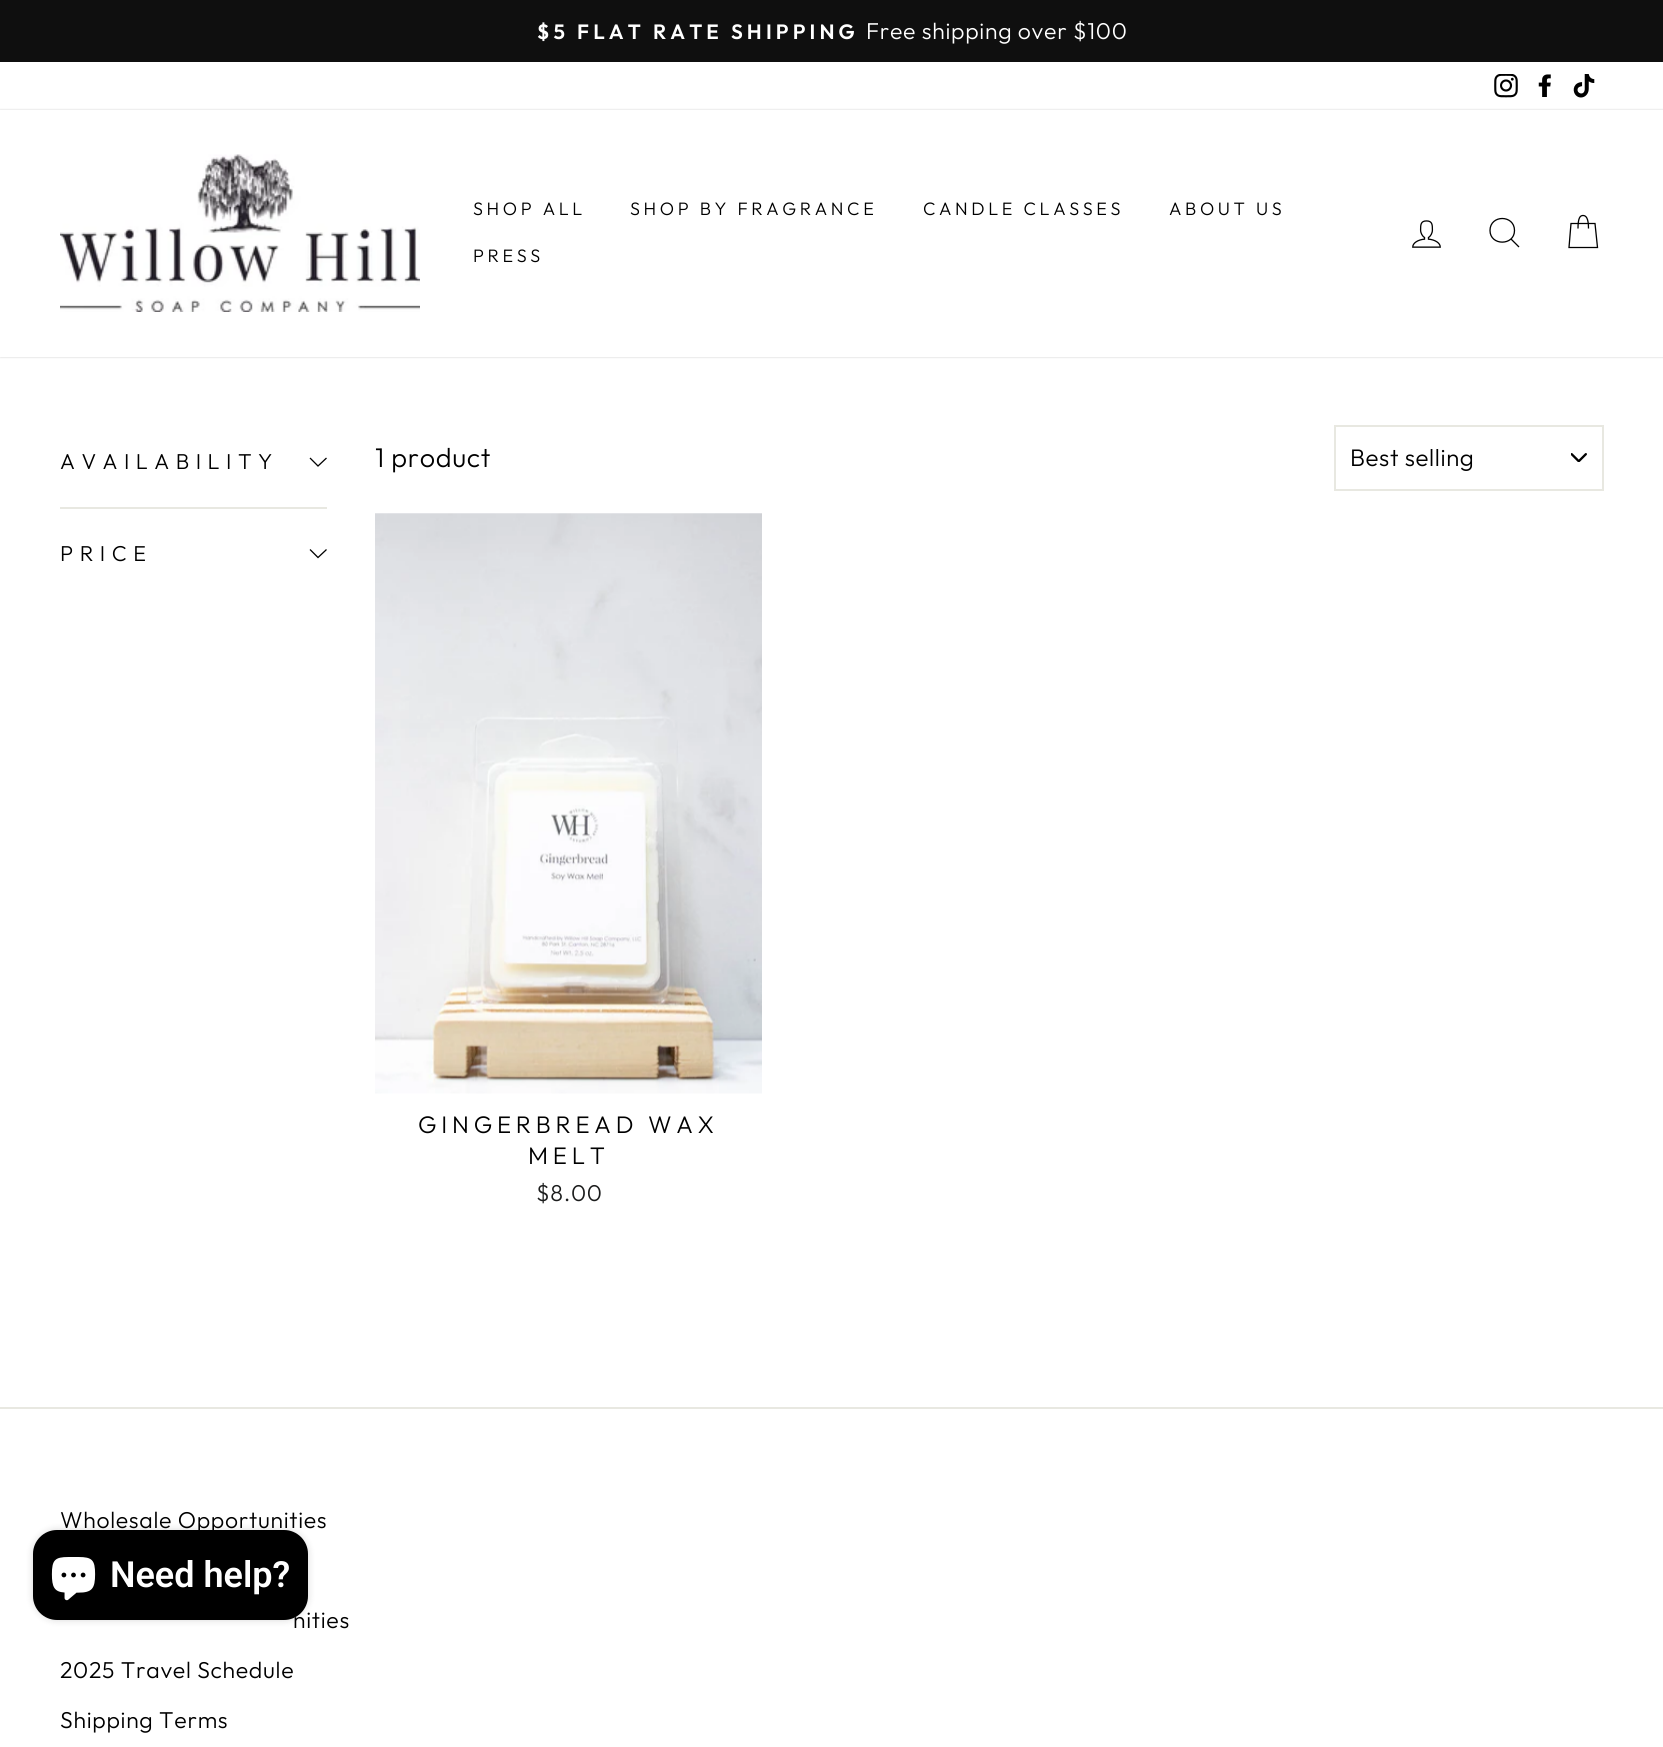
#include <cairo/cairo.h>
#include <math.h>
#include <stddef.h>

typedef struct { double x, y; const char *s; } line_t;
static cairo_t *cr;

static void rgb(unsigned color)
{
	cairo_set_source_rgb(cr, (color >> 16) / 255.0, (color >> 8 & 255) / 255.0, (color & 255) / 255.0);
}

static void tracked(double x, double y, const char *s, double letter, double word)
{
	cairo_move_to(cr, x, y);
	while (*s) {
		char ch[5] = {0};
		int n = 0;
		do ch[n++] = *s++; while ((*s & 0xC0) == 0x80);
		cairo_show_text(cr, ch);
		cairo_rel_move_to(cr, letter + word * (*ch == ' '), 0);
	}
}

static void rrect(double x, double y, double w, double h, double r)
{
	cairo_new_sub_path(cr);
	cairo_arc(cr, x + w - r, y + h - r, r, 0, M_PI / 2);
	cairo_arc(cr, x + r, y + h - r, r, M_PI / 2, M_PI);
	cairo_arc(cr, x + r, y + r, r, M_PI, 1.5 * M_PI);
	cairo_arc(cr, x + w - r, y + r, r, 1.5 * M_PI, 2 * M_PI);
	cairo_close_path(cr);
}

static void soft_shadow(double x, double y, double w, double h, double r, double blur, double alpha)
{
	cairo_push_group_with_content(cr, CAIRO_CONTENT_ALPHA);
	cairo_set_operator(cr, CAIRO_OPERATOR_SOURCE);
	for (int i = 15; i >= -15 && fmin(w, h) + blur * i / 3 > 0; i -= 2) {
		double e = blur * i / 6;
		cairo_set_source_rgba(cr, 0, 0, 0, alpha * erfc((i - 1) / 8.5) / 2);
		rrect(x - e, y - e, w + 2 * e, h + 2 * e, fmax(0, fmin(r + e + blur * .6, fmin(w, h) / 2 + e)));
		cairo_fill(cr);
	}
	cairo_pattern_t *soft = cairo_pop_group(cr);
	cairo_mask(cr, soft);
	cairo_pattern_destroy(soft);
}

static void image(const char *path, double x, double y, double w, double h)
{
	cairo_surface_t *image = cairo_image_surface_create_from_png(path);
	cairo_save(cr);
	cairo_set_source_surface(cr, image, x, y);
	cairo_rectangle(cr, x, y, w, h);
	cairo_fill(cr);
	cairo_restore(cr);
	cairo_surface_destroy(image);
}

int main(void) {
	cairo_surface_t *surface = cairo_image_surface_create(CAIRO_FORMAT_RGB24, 1663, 1747);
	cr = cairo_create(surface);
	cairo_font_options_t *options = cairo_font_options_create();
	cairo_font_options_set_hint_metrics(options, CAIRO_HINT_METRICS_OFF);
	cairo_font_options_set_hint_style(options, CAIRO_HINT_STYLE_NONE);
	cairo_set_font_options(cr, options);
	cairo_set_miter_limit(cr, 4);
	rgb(0xffffff);
	cairo_paint(cr);
	rgb(0x0f0f0f);
	cairo_rectangle(cr, 0, 0, 1663, 62);
	cairo_fill(cr);
	image("img/1.png", 1494, 74, 24, 24);
	image("img/2.png", 1538, 74, 13, 23);
	image("img/3.png", 1573, 74, 22, 24);
	cairo_save(cr);
	cairo_set_fill_rule(cr, CAIRO_FILL_RULE_EVEN_ODD);
	cairo_new_path(cr);
	cairo_move_to(cr, 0, 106);
	cairo_line_to(cr, 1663, 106);
	cairo_line_to(cr, 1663, 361);
	cairo_line_to(cr, 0, 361);
	cairo_close_path(cr);
	cairo_move_to(cr, 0, 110);
	cairo_line_to(cr, 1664, 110);
	cairo_line_to(cr, 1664, 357);
	cairo_line_to(cr, 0, 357);
	cairo_close_path(cr);
	cairo_clip(cr);
	rgb(0x000000);
	soft_shadow(0, 110, 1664, 247, 0, 1, 0.2);
	cairo_restore(cr);
	image("img/4.png", 60, 154, 360, 158);
	image("img/5.png", 1412, 220, 29, 28);
	cairo_new_path(cr);
	cairo_move_to(cr, 1514.5, 230.5);
	cairo_curve_to(cr, 1514.5, 246, 1490, 246, 1490, 230.5);
	cairo_curve_to(cr, 1490, 214.5, 1514.5, 214.5, 1514.5, 230.5);
	cairo_close_path(cr);
	cairo_move_to(cr, 1519, 247);
	cairo_line_to(cr, 1511, 239);
	rgb(0x000000);
	cairo_set_line_width(cr, 1.3);
	cairo_stroke(cr);
	cairo_new_path(cr);
	cairo_move_to(cr, 1578, 228.5);
	cairo_curve_to(cr, 1578, 218, 1580, 215.5, 1583, 215.5);
	cairo_curve_to(cr, 1586, 215.5, 1588.5, 218, 1588.5, 228.5);
	cairo_move_to(cr, 1571, 223.5);
	cairo_line_to(cr, 1595, 223.5);
	cairo_line_to(cr, 1597.5, 247.5);
	cairo_line_to(cr, 1569, 247.5);
	cairo_close_path(cr);
	cairo_stroke(cr);
	cairo_new_path(cr);
	cairo_move_to(cr, 310, 458);
	cairo_line_to(cr, 318, 466);
	cairo_line_to(cr, 326.5, 458);
	cairo_stroke(cr);
	rgb(0xe8e8e1);
	cairo_rectangle(cr, 60, 507, 267, 2);
	cairo_fill(cr);
	cairo_new_path(cr);
	cairo_move_to(cr, 310, 549.5);
	cairo_line_to(cr, 318, 557.5);
	cairo_line_to(cr, 326.5, 549.5);
	rgb(0x000000);
	cairo_stroke(cr);
	image("img/6.png", 1571, 453, 16, 9);
	cairo_rectangle(cr, 1335, 426, 268, 64);
	rgb(0xe8e8e1);
	cairo_set_line_width(cr, 2);
	cairo_stroke(cr);
	image("img/7.png", 375, 513, 387, 581);
	cairo_rectangle(cr, 0, 1407, 1663, 2);
	cairo_fill(cr);
	rgb(0x000000);
	soft_shadow(33, 1530, 275, 90, 24, 4, 0.15);
	rgb(0x000000);
	rrect(33, 1530, 275, 90, 24);
	cairo_fill(cr);
	image("img/8.png", 51, 1557, 45, 44);
	cairo_select_font_face(cr, "Outfit SemiBold", CAIRO_FONT_SLANT_NORMAL, CAIRO_FONT_WEIGHT_NORMAL);
	cairo_set_font_size(cr, 20.7);
	rgb(0xffffff);
	tracked(537, 39, "$5 FLAT RATE SHIPPING", 4.1, 0);
	cairo_select_font_face(cr, "Outfit Light", CAIRO_FONT_SLANT_NORMAL, CAIRO_FONT_WEIGHT_NORMAL);
	cairo_set_font_size(cr, 23);
	tracked(866, 39, "Free shipping over $100", 0.7, 0);
	cairo_set_font_size(cr, 18);
	rgb(0x000000);
	{
		static const line_t items[] = {
			{473, 215, "SHOP ALL"},
			{630, 215, "SHOP BY FRAGRANCE"},
			{923, 215, "CANDLE CLASSES"},
			{1169, 215, "ABOUT US"},
			{473, 262, "PRESS"},
		};
		for (size_t i = 0; i < sizeof items / sizeof *items; i++) {
			tracked(items[i].x, items[i].y, items[i].s, 3.6, 0);
		}
	}
	cairo_set_font_size(cr, 21.6);
	tracked(60, 469, "AVAILABILITY", 6.5, 0);
	tracked(60, 561, "PRICE", 6.5, 0);
	cairo_set_font_size(cr, 27);
	tracked(375, 467, "1 product", 0.7, 0);
	cairo_set_font_size(cr, 24);
	tracked(1350, 466, "Best selling", 0.6, 0);
	tracked(418, 1133, "GINGERBREAD WAX", 4.75, 0);
	tracked(528, 1164, "MELT", 4.75, 0);
	cairo_set_font_size(cr, 23);
	rgb(0x1c1d1d);
	tracked(536, 1201, "$8.00", 0.7, 0);
	rgb(0x000000);
	{
		static const line_t items[] = {
			{60, 1528, "Wholesale Opportunities"},
			{293, 1628, "nities"},
			{60, 1678, "2025 Travel Schedule"},
			{60, 1728, "Shipping Terms"},
		};
		for (size_t i = 0; i < sizeof items / sizeof *items; i++) {
			tracked(items[i].x, items[i].y, items[i].s, 0.7, 0);
		}
	}
	cairo_select_font_face(cr, "Roboto SemiBold", CAIRO_FONT_SLANT_NORMAL, CAIRO_FONT_WEIGHT_NORMAL);
	cairo_set_font_size(cr, 36);
	rgb(0xffffff);
	cairo_move_to(cr, 110, 1587);
	cairo_show_text(cr, "Need help?");
	cairo_surface_write_to_png(surface, "page.png");
	cairo_font_options_destroy(options);
	cairo_destroy(cr);
	cairo_surface_destroy(surface);
	return 0;
}
